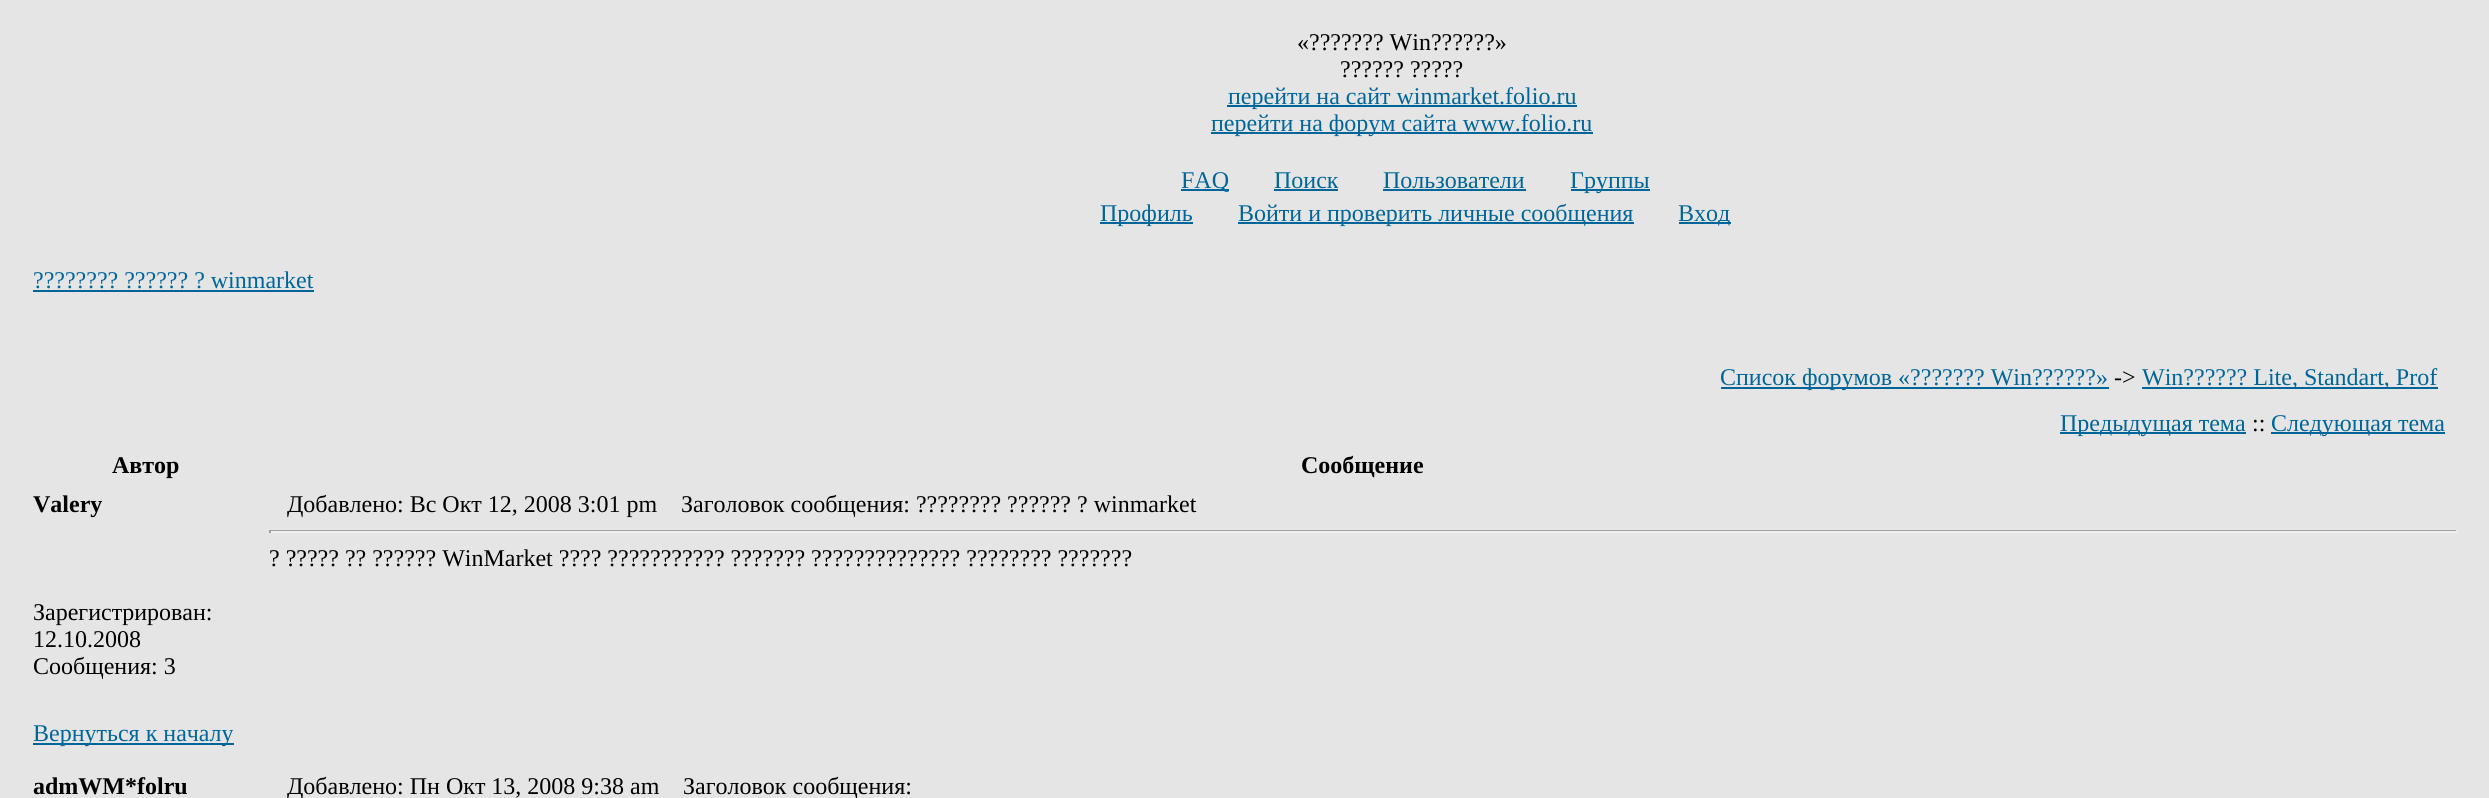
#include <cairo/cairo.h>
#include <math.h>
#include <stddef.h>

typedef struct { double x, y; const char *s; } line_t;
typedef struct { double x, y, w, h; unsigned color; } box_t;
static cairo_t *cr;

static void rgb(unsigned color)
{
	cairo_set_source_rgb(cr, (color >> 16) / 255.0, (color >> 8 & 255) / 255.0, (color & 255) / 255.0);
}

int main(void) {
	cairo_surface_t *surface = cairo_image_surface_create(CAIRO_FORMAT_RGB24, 2489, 798);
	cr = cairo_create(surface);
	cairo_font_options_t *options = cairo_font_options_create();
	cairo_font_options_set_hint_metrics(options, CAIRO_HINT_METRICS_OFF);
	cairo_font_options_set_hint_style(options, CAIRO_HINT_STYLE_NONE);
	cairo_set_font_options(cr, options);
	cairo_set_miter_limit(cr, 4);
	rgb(0xe5e5e5);
	cairo_paint(cr);
	{
		static const box_t items[] = {
			{1227, 105, 350, 2, 0x006699},
			{1211, 132, 382, 2, 0x006699},
			{1181, 189, 48, 2, 0x006699},
			{1274, 189, 64, 2, 0x006699},
			{1383, 189, 143, 2, 0x006699},
			{1571, 189, 79, 2, 0x006699},
			{1100, 222, 93, 2, 0x006699},
			{1238, 222, 396, 2, 0x006699},
			{1679, 222, 52, 2, 0x006699},
			{33, 290, 281, 2, 0x006699},
			{1721, 387, 388, 2, 0x006699},
			{2142, 387, 296, 2, 0x006699},
			{2060, 432, 186, 2, 0x006699},
			{2271, 432, 174, 2, 0x006699},
			{269, 530, 2188, 1, 0x9f9f9f},
			{2456, 530, 2, 3, 0xeeeeee},
			{269, 531, 2188, 2, 0xeeeeee},
			{269, 530, 2, 3, 0x9f9f9f},
			{33, 743, 201, 2, 0x006699},
		};
		for (size_t i = 0; i < sizeof items / sizeof *items; i++) {
			rgb(items[i].color);
			cairo_rectangle(cr, items[i].x, items[i].y, items[i].w, items[i].h);
			cairo_fill(cr);
		}
	}
	cairo_select_font_face(cr, "Liberation Serif", CAIRO_FONT_SLANT_NORMAL, CAIRO_FONT_WEIGHT_NORMAL);
	cairo_set_font_size(cr, 24);
	rgb(0x000000);
	cairo_move_to(cr, 1297, 50);
	cairo_show_text(cr, "«?\077?\077?\077? Win?\077?\077?\077»");
	cairo_move_to(cr, 1340, 77);
	cairo_show_text(cr, "?\077?\077?\077 ?\077?\077?");
	rgb(0x006699);
	{
		static const line_t items[] = {
			{1228, 104, "перейти на сайт winmarket.folio.ru"},
			{1211, 131, "перейти на форум сайта www.folio.ru"},
			{1181, 188, "FAQ"},
			{1274, 188, "Поиск"},
			{1383, 188, "Пользователи"},
			{1570, 188, "Группы"},
			{1100, 221, "Профиль"},
			{1238, 221, "Войти и проверить личные сообщения"},
			{1678, 221, "Вход"},
			{33, 288, "?\077?\077?\077?\077 ?\077?\077?\077 ? winmarket"},
			{1720, 385, "Список форумов «?\077?\077?\077? Win?\077?\077?\077»"},
		};
		for (size_t i = 0; i < sizeof items / sizeof *items; i++) {
			cairo_move_to(cr, items[i].x, items[i].y);
			cairo_show_text(cr, items[i].s);
		}
	}
	rgb(0x000000);
	cairo_move_to(cr, 2114, 385);
	cairo_show_text(cr, "->");
	rgb(0x006699);
	cairo_move_to(cr, 2142, 385);
	cairo_show_text(cr, "Win?\077?\077?\077 Lite, Standart, Prof");
	cairo_move_to(cr, 2060, 431);
	cairo_show_text(cr, "Предыдущая тема");
	rgb(0x000000);
	cairo_move_to(cr, 2252, 431);
	cairo_show_text(cr, "::");
	rgb(0x006699);
	cairo_move_to(cr, 2271, 431);
	cairo_show_text(cr, "Следующая тема");
	cairo_select_font_face(cr, "Liberation Serif", CAIRO_FONT_SLANT_NORMAL, CAIRO_FONT_WEIGHT_BOLD);
	rgb(0x000000);
	{
		static const line_t items[] = {
			{112, 473, "Автор"},
			{1301, 473, "Сообщение"},
			{33, 512, "Valery"},
		};
		for (size_t i = 0; i < sizeof items / sizeof *items; i++) {
			cairo_move_to(cr, items[i].x, items[i].y);
			cairo_show_text(cr, items[i].s);
		}
	}
	cairo_select_font_face(cr, "Liberation Serif", CAIRO_FONT_SLANT_NORMAL, CAIRO_FONT_WEIGHT_NORMAL);
	{
		static const line_t items[] = {
			{33, 620, "Зарегистрирован:"},
			{33, 647, "12.10.2008"},
			{33, 674, "Сообщения: 3"},
			{287, 512, "Добавлено: Вс Окт 12, 2008 3:01 pm"},
			{681, 512, "Заголовок сообщения: ?\077?\077?\077?\077 ?\077?\077?\077 ? winmarket"},
			{269, 566, "? ?\077?\077? ?\077 ?\077?\077?\077 WinMarket ?\077?\077 ?\077?\077?\077?\077?\077? ?\077?\077?\077? ?\077?\077?\077?\077?\077?\077?\077 ?\077?\077?\077?\077 ?\077?\077?\077?"},
		};
		for (size_t i = 0; i < sizeof items / sizeof *items; i++) {
			cairo_move_to(cr, items[i].x, items[i].y);
			cairo_show_text(cr, items[i].s);
		}
	}
	rgb(0x006699);
	cairo_move_to(cr, 33, 741);
	cairo_show_text(cr, "Вернуться к началу");
	cairo_select_font_face(cr, "Liberation Serif", CAIRO_FONT_SLANT_NORMAL, CAIRO_FONT_WEIGHT_BOLD);
	rgb(0x000000);
	cairo_move_to(cr, 33, 794);
	cairo_show_text(cr, "admWM*folru");
	cairo_select_font_face(cr, "Liberation Serif", CAIRO_FONT_SLANT_NORMAL, CAIRO_FONT_WEIGHT_NORMAL);
	cairo_move_to(cr, 287, 794);
	cairo_show_text(cr, "Добавлено: Пн Окт 13, 2008 9:38 am");
	cairo_move_to(cr, 683, 794);
	cairo_show_text(cr, "Заголовок сообщения:");
	cairo_surface_write_to_png(surface, "page.png");
	cairo_font_options_destroy(options);
	cairo_destroy(cr);
	cairo_surface_destroy(surface);
	return 0;
}
